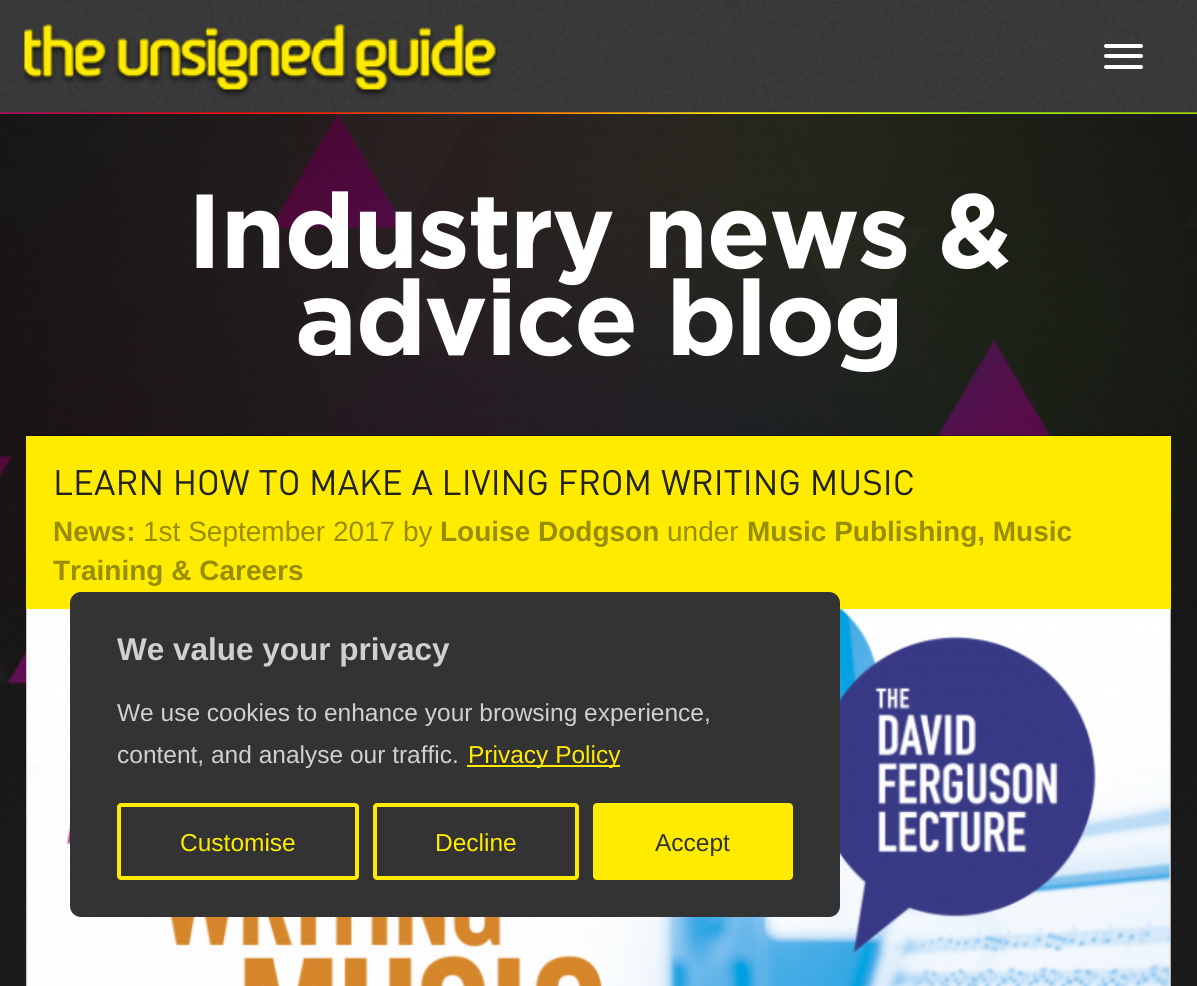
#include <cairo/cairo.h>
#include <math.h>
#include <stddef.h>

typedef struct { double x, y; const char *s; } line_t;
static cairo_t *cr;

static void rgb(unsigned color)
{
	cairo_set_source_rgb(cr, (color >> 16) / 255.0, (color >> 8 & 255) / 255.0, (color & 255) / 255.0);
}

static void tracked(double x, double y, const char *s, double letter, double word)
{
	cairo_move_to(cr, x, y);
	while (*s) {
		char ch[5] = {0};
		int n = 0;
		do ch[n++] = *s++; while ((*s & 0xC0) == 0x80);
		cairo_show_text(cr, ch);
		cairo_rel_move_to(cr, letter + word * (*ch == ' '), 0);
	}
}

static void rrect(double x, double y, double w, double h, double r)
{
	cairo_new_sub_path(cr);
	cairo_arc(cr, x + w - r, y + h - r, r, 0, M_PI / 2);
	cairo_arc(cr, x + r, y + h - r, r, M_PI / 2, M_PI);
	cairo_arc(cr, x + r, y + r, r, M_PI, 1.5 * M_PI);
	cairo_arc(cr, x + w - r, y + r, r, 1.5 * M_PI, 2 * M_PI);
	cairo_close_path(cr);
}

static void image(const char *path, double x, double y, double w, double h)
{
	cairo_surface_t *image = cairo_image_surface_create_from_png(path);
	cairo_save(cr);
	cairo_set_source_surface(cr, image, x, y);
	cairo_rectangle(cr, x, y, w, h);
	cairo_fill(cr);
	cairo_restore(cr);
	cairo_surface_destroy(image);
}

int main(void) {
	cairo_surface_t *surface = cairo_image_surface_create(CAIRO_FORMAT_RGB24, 1197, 986);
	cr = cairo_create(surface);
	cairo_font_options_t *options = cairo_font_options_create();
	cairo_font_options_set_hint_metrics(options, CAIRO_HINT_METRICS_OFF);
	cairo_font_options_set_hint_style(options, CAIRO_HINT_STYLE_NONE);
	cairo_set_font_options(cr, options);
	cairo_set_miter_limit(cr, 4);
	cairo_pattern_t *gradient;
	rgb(0xffffff);
	cairo_paint(cr);
	image("img/1.png", 0, 896, 1197, 90);
	image("img/5.png", 0, 112, 1197, 784);
	gradient = cairo_pattern_create_linear(598, 0, 599, 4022);
	cairo_pattern_add_color_stop_rgba(gradient, 0, 0, 0, 0, 0.7);
	cairo_pattern_add_color_stop_rgba(gradient, 1, 0, 0, 0, 0);
	cairo_set_source(cr, gradient);
	cairo_pattern_destroy(gradient);
	cairo_rectangle(cr, 0, 112, 1197, 874);
	cairo_fill(cr);
	image("img/2.png", 0, 112, 1197, 2);
	image("img/3.png", 0, 0, 1197, 112);
	image("img/4.png", 24, 24, 473, 73);
	rgb(0xffffff);
	rrect(1104, 44, 39, 4, 2);
	cairo_fill(cr);
	rrect(1104, 54, 39, 4, 2);
	cairo_fill(cr);
	rrect(1104, 65, 39, 4, 2);
	cairo_fill(cr);
	cairo_set_source_rgba(cr, 0, 0, 0, 0.4);
	cairo_rectangle(cr, 26, 435, 1145, 551);
	cairo_fill(cr);
	rgb(0xffeb00);
	cairo_rectangle(cr, 26, 436, 1145, 173);
	cairo_fill(cr);
	image("img/6.png", 26, 609, 1145, 377);
	rgb(0x333333);
	rrect(71, 593, 768, 323, 10);
	cairo_fill_preserve(cr);
	cairo_stroke(cr);
	rgb(0xffeb00);
	cairo_rectangle(cr, 467, 765, 153, 2);
	cairo_fill(cr);
	rrect(119, 805, 238, 73, 2);
	cairo_set_line_width(cr, 4);
	cairo_stroke(cr);
	rrect(375, 805, 202, 73, 2);
	cairo_stroke(cr);
	rrect(595, 805, 196, 73, 2);
	cairo_fill_preserve(cr);
	cairo_stroke(cr);
	cairo_select_font_face(cr, "Gotham", CAIRO_FONT_SLANT_NORMAL, CAIRO_FONT_WEIGHT_BOLD);
	cairo_set_font_size(cr, 105);
	rgb(0xffffff);
	tracked(187, 268, "Industry news &", -1.75, 0);
	tracked(295, 355, "advice blog", -1.75, 0);
	cairo_select_font_face(cr, "DIN", CAIRO_FONT_SLANT_NORMAL, CAIRO_FONT_WEIGHT_NORMAL);
	cairo_set_font_size(cr, 35);
	rgb(0x222222);
	cairo_move_to(cr, 53, 495);
	cairo_show_text(cr, "LEARN HOW TO MAKE A LIVING FROM WRITING MUSIC");
	cairo_select_font_face(cr, "Liberation Sans", CAIRO_FONT_SLANT_NORMAL, CAIRO_FONT_WEIGHT_BOLD);
	cairo_set_font_size(cr, 28);
	rgb(0x988c00);
	cairo_move_to(cr, 53, 541);
	cairo_show_text(cr, "News:");
	cairo_select_font_face(cr, "Liberation Sans", CAIRO_FONT_SLANT_NORMAL, CAIRO_FONT_WEIGHT_NORMAL);
	cairo_move_to(cr, 143, 541);
	cairo_show_text(cr, "1st September 2017 by");
	cairo_select_font_face(cr, "Liberation Sans", CAIRO_FONT_SLANT_NORMAL, CAIRO_FONT_WEIGHT_BOLD);
	cairo_move_to(cr, 440, 541);
	cairo_show_text(cr, "Louise Dodgson");
	cairo_select_font_face(cr, "Liberation Sans", CAIRO_FONT_SLANT_NORMAL, CAIRO_FONT_WEIGHT_NORMAL);
	cairo_move_to(cr, 667, 541);
	cairo_show_text(cr, "under");
	cairo_select_font_face(cr, "Liberation Sans", CAIRO_FONT_SLANT_NORMAL, CAIRO_FONT_WEIGHT_BOLD);
	cairo_move_to(cr, 747, 541);
	cairo_show_text(cr, "Music Publishing, Music");
	cairo_move_to(cr, 53, 580);
	cairo_show_text(cr, "Training & Careers");
	cairo_set_font_size(cr, 31.5);
	rgb(0xd0d0d0);
	cairo_move_to(cr, 117, 660);
	cairo_show_text(cr, "We value your privacy");
	cairo_select_font_face(cr, "Liberation Sans", CAIRO_FONT_SLANT_NORMAL, CAIRO_FONT_WEIGHT_NORMAL);
	cairo_set_font_size(cr, 24.5);
	cairo_move_to(cr, 117, 721);
	cairo_show_text(cr, "We use cookies to enhance your browsing experience,");
	cairo_move_to(cr, 117, 763);
	cairo_show_text(cr, "content, and analyse our traffic.");
	rgb(0xffeb00);
	{
		static const line_t items[] = {
			{468, 763, "Privacy Policy"},
			{180, 851, "Customise"},
			{435, 851, "Decline"},
		};
		for (size_t i = 0; i < sizeof items / sizeof *items; i++) {
			cairo_move_to(cr, items[i].x, items[i].y);
			cairo_show_text(cr, items[i].s);
		}
	}
	rgb(0x333333);
	cairo_move_to(cr, 655, 851);
	cairo_show_text(cr, "Accept");
	cairo_surface_write_to_png(surface, "page.png");
	cairo_font_options_destroy(options);
	cairo_destroy(cr);
	cairo_surface_destroy(surface);
	return 0;
}
